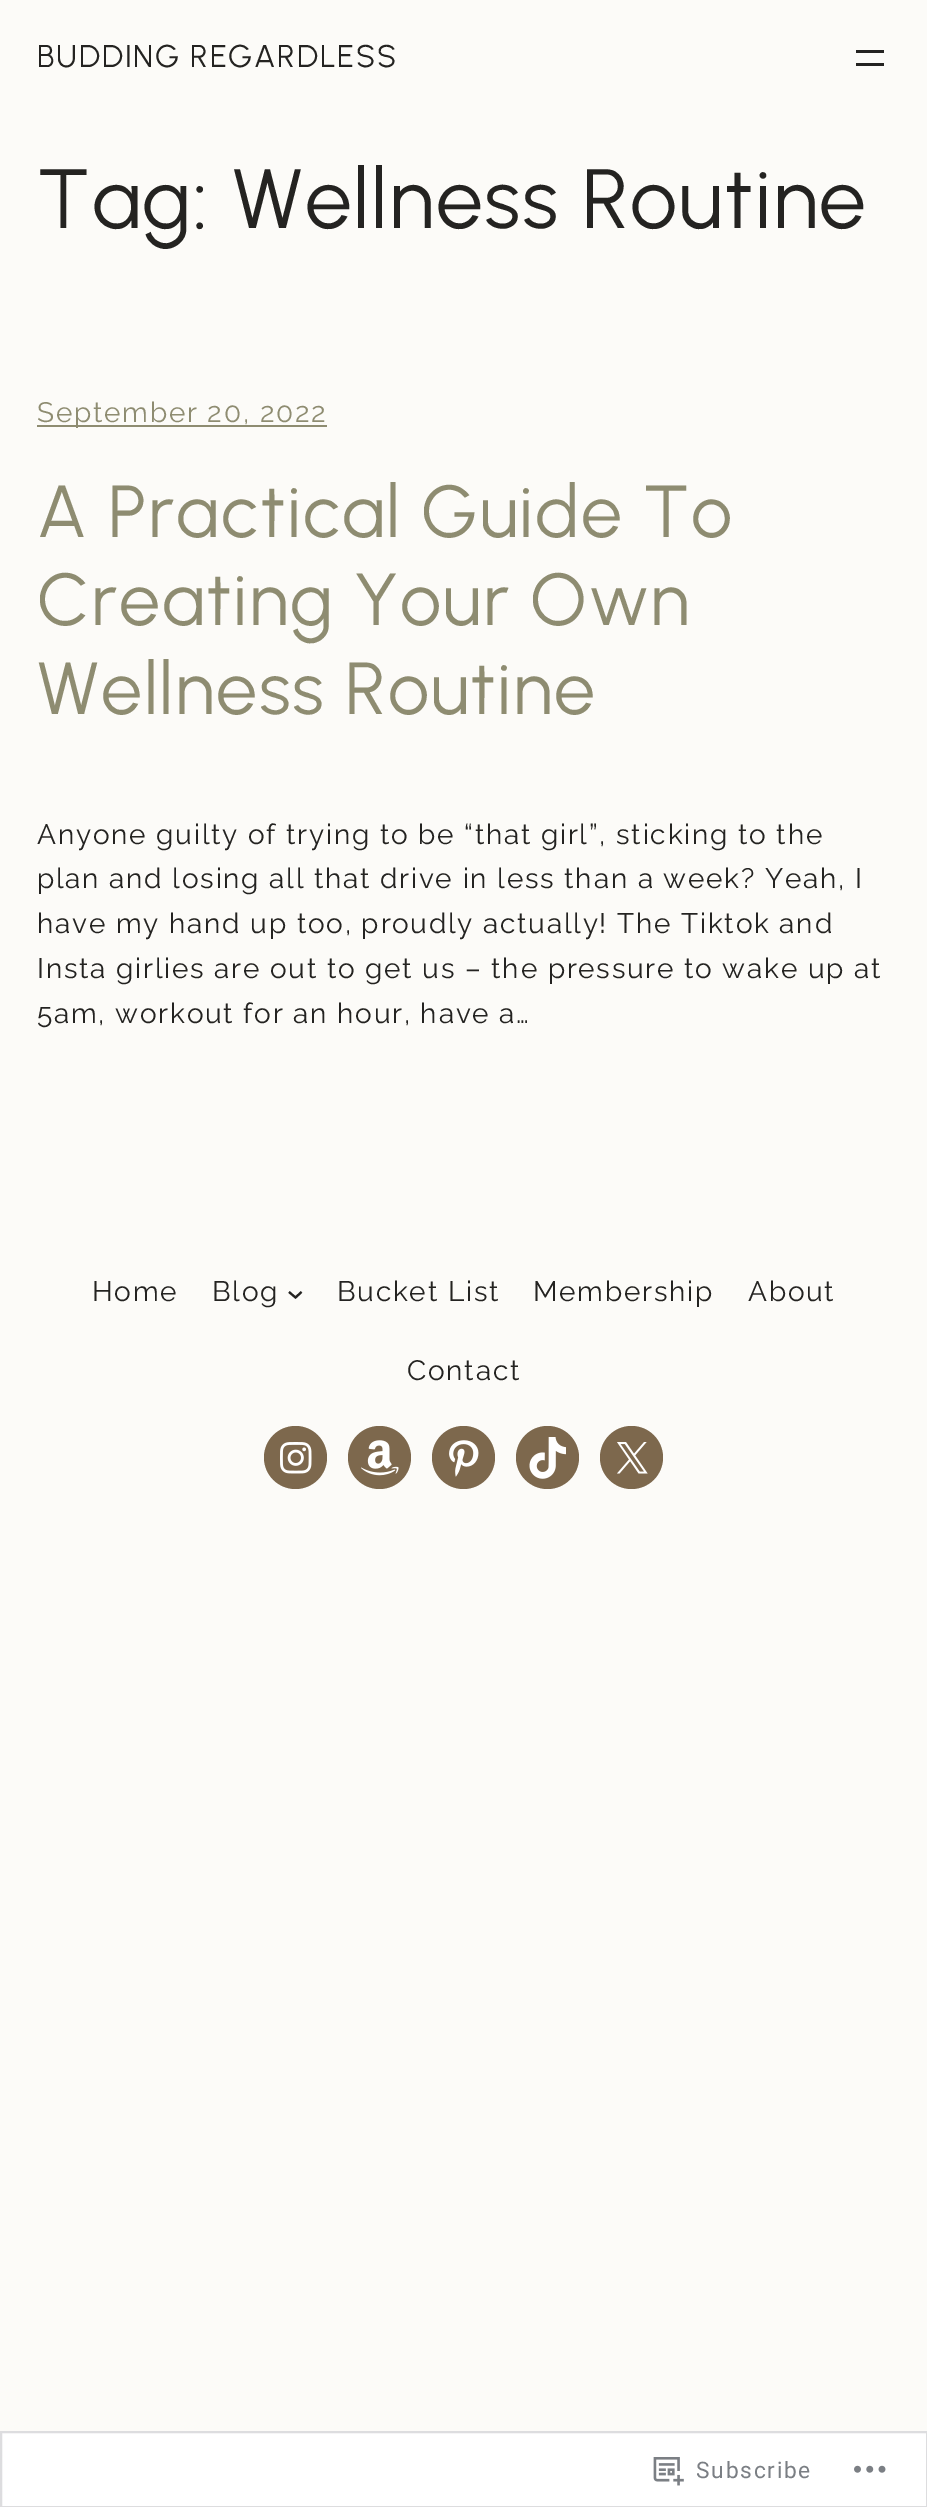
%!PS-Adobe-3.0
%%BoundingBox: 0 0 927 2507
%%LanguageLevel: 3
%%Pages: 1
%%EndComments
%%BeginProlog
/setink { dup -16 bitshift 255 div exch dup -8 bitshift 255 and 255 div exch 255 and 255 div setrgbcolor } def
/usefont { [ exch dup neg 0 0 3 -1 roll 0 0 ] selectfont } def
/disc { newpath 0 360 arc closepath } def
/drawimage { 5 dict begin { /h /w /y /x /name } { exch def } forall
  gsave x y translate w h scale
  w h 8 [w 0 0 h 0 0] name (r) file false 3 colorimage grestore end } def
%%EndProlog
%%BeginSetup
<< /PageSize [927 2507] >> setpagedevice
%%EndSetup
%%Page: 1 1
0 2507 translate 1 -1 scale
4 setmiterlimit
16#FCFBF8 setink
0 0 927 2507 rectfill
/Urbanist-Regular 31.5 usefont
16#242321 setink
37 67 moveto 1.75 0 (BUDDING REGARDLESS) ashow
856 50 28 3 rectfill
856 63 28 3 rectfill
/Urbanist-Regular 84 usefont
37 228 moveto 1.75 0 (Tag: Wellness Routine) ashow
16#8E8C71 setink
37 425 290 2 rectfill
/Raleway-Regular 28 usefont
37 422 moveto 1.75 0 (September 20, 2022) ashow
/Urbanist-Regular 73.5 usefont
37 537 moveto 1.75 0 (A Practical Guide To) ashow
37 625 moveto 1.75 0 (Creating Your Own) ashow
37 714 moveto 1.75 0 (Wellness Routine) ashow
/Raleway-Regular 28 usefont
16#242321 setink
37 844 moveto 1.75 0 (Anyone guilty of trying to be “that girl”, sticking to the) ashow
37 888 moveto 1.75 0 (plan and losing all that drive in less than a week? Yeah, I) ashow
37 933 moveto 1.75 0 (have my hand up too, proudly actually! The Tiktok and) ashow
37 978 moveto 1.75 0 (Insta girlies are out to get us – the pressure to wake up at) ashow
37 1023 moveto 1.75 0 (5am, workout for an hour, have a…) ashow
92 1301 moveto 1.75 0 (Home) ashow
212 1301 moveto 1.75 0 (Blog) ashow
2.1 setlinewidth
289 1292 moveto 295.5 1297.5 lineto 301.5 1292 lineto stroke
337 1301 moveto 1.75 0 (Bucket List) ashow
533 1301 moveto 1.75 0 (Membership) ashow
748 1301 moveto 1.75 0 (About) ashow
407 1380 moveto 1.75 0 (Contact) ashow
16#7D684D setink
295.5 1457.5 31.5 disc fill
(img1.raw) 280 1442 32 32 drawimage
379.5 1457.5 31.5 disc fill
(img2.raw) 361 1440 38 36 drawimage
463.5 1457.5 31.5 disc fill
(img3.raw) 449 1440 30 37 drawimage
547.5 1457.5 31.5 disc fill
(img4.raw) 529 1437 37 42 drawimage
631.5 1457.5 31.5 disc fill
(img5.raw) 617 1442 31 32 drawimage
16#FFFFFF setink
1 2432 moveto 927 2432 lineto 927 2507 lineto 1 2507 lineto closepath gsave fill grestore
16#DDDDDF setink
2 setlinewidth
stroke
(img6.raw) 653 2457 31 29 drawimage
/Roboto-Regular 22.75 usefont
16#7B7F84 setink
696 2478 moveto 1.75 0 (Subscribe) ashow
(img7.raw) 854 2465 32 8 drawimage
showpage
%%EOF
